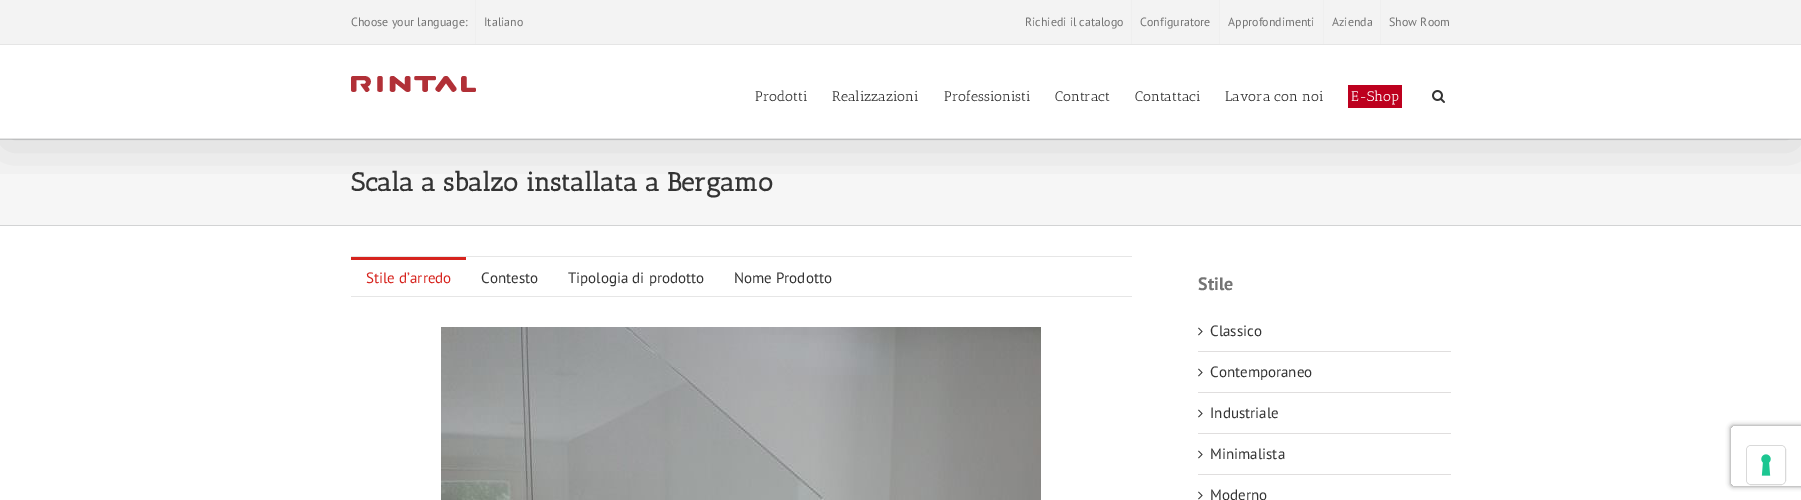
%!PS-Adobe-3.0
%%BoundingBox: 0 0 1801 500
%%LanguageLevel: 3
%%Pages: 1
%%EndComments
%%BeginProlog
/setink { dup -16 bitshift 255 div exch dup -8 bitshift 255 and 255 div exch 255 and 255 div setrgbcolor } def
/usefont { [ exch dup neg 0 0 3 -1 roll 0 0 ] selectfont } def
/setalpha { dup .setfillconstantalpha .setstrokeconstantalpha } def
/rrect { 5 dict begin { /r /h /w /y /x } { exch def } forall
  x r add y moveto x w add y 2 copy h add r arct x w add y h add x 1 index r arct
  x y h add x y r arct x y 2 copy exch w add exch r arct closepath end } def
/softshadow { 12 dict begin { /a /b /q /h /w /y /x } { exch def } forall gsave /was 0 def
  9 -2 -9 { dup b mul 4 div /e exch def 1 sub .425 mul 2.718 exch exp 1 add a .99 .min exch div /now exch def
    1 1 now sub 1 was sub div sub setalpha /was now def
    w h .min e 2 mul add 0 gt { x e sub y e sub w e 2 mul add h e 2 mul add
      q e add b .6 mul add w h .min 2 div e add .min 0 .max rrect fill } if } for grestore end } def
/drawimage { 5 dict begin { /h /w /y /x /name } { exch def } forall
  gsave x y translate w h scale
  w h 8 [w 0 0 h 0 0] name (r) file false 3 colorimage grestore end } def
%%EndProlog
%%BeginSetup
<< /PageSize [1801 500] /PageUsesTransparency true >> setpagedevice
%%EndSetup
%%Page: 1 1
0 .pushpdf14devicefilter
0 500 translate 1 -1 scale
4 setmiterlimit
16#FFFFFF setink
0 0 1801 500 rectfill
[
    [0 0 1801 44 16#F3F3F3]
    [0 44 1801 1 16#E5E5E5]
    [475 0 1 44 16#EFEFEF]
    [1131 0 1 44 16#EFEFEF]
    [1219 0 1 44 16#EFEFEF]
    [1323 0 1 44 16#EFEFEF]
    [1380 0 1 44 16#EFEFEF]
    [0 138 1801 1 16#E5E5E5]
] { aload pop setink rectfill } forall
(img1.raw) 351 76 125 16 drawimage
16#F6F6F6 setink
0 140 1801 85 rectfill
16#D2D3D4 setink
0 139 1801 1 rectfill
gsave
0 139 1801 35 rectclip
16#000000 setink
2 12 1797 135 0 25 0.14 softshadow
grestore
/PTSans-Regular 12 usefont
16#747474 setink
[
    [(Choose your language:) 351 26]
    [(Italiano) 484 26]
    [(Richiedi il catalogo) 1025 26]
    [(Configuratore) 1140 26]
    [(Approfondimenti) 1228 26]
    [(Azienda) 1332 26]
    [(Show Room) 1389 26]
] { aload pop moveto show } forall
/AnticSlab-Regular 14 usefont
16#333333 setink
[
    [(Prodotti) 755 101]
    [(Realizzazioni) 832 101]
    [(Professionisti) 944 101]
    [(Contract) 1055 101]
    [(Contattaci) 1135 101]
    [(Lavora con noi) 1225 101]
] { aload pop moveto show } forall
16#BD001E setink
1348 85 54 23 rectfill
16#FFFFFF setink
1351 101 moveto (E-Shop) show
(img2.raw) 1432 90 13 13 drawimage
16#D2D3D4 setink
0 225 1801 1 rectfill
/AnticSlab-Bold 26 usefont
16#333333 setink
351 191 moveto (Scala a sbalzo installata a Bergamo) show
[
    [351 256 781 1 16#E6E6E6]
    [351 296 781 1 16#E6E6E6]
    [351 257 115 3 16#D6231D]
] { aload pop setink rectfill } forall
/PTSans-Regular 15 usefont
366 283 moveto (Stile d’arredo) show
16#333333 setink
[
    [(Contesto) 481 283]
    [(Tipologia di prodotto) 568 283]
    [(Nome Prodotto) 734 283]
] { aload pop moveto show } forall
(img3.raw) 441 327 600 173 drawimage
/PTSans-Bold 18 usefont
16#747474 setink
1198 290 moveto (Stile) show
16#E0DEDE setink
1198 351 253 1 rectfill
(img4.raw) 1198 327 5 9 drawimage
/PTSans-Regular 15 usefont
16#333333 setink
1210 336 moveto (Classico) show
16#E0DEDE setink
1198 392 253 1 rectfill
(img4.raw) 1198 368 5 9 drawimage
16#333333 setink
1210 377 moveto (Contemporaneo) show
16#E0DEDE setink
1198 433 253 1 rectfill
(img4.raw) 1198 409 5 9 drawimage
16#333333 setink
1210 418 moveto (Industriale) show
16#E0DEDE setink
1198 474 253 1 rectfill
(img4.raw) 1198 450 5 9 drawimage
16#333333 setink
1210 459 moveto (Minimalista) show
(img4.raw) 1198 491 5 9 drawimage
1210 500 moveto (Moderno) show
gsave
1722 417 moveto 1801 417 lineto 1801 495 lineto 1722 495 lineto closepath 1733 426 moveto 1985 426 lineto 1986 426 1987 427 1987 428 curveto 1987 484 lineto 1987 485 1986 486 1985 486 curveto 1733 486 lineto 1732 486 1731 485 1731 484 curveto 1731 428 lineto 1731 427 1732 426 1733 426 curveto closepath eoclip newpath
16#808080 setink
1731 426 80 60 2 2.5 1 softshadow
grestore
16#D9D9D9 setink
1746.5 445.5 39 39 4.5 rrect stroke
16#FFFFFF setink
1747 446 38 38 4 rrect fill
(img5.raw) 1761 454 10 22 drawimage
.poppdf14devicefilter showpage
%%EOF
